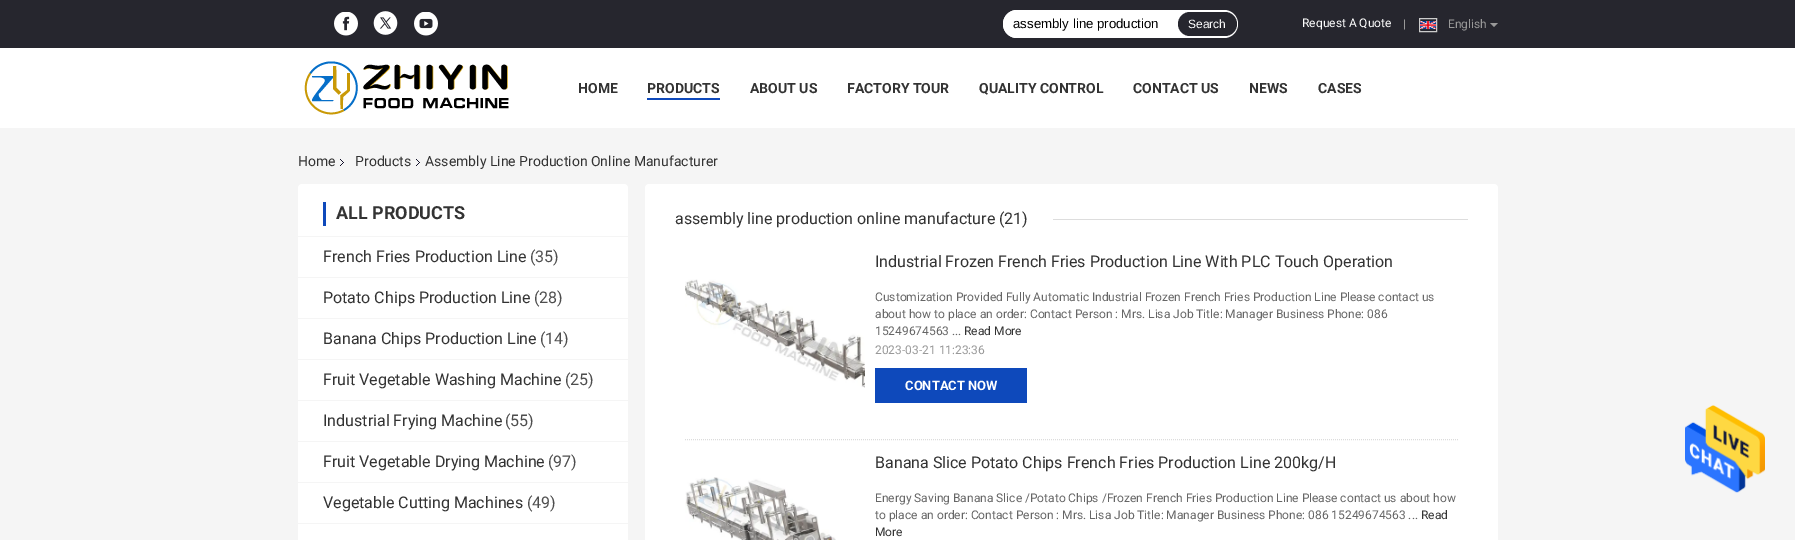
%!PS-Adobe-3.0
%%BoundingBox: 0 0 1795 540
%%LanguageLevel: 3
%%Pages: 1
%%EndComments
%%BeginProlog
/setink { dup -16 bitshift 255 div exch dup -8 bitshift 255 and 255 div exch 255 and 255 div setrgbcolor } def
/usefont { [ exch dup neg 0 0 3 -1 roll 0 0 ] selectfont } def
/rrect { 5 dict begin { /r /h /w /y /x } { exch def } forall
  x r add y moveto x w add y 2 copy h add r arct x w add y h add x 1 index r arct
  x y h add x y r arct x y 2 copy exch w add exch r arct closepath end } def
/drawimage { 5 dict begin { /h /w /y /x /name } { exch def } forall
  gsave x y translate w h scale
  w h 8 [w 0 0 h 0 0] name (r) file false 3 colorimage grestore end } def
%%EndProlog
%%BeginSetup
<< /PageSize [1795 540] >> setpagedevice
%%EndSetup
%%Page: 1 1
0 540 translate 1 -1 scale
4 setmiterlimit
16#F5F5F5 setink
0 0 1795 540 rectfill
16#FFFFFF setink
0 48 1795 80 rectfill
16#26262E setink
0 0 1795 48 rectfill
(img1.raw) 334 12 24 24 drawimage
(img2.raw) 373 11 25 24 drawimage
(img3.raw) 414 12 24 24 drawimage
16#FFFFFF setink
1003 10 235 28 14 rrect fill
1017 10 moveto 1178 10 lineto 1178 38 lineto 1017 38 lineto 1009.5 38 1003 31.5 1003 24 curveto 1003 16.5 1009.5 10 1017 10 curveto closepath fill
/LiberationSans-Regular 13.25 usefont
16#000000 setink
1013 28 moveto (assembly line production) show
16#26262E setink
1178 12 59 24 12 rrect fill
/LiberationSans-Regular 12 usefont
16#FFFFFF setink
1188 28 moveto (Search) show
/Roboto-Regular 12 usefont
1302 27 moveto (Request A Quote) show
16#999999 setink
1403 28 moveto (|) show
16#CCCCCC setink
1419.5 18.5 17 13 rectstroke
16#999999 setink
1448 28 moveto (English) show
(img4.raw) 1420 21 16 9 drawimage
1490 23 moveto 1498 23 lineto 1494 27 lineto closepath fill
(img5.raw) 304 61 205 54 drawimage
/Roboto-Bold 14 usefont
16#333333 setink
578 93 moveto (HOME) show
647 93 moveto (PRODUCTS) show
16#0E49BB setink
647 98 73 2 rectfill
16#333333 setink
[
    [(ABOUT US) 750 93]
    [(FACTORY TOUR) 847 93]
    [(QUALITY CONTROL) 979 93]
    [(CONTACT US) 1133 93]
    [(NEWS) 1249 93]
    [(CASES) 1318 93]
] { aload pop moveto show } forall
/Roboto-Regular 14 usefont
298 166 moveto (Home) show
(img6.raw) 340 159 4 7 drawimage
355 166 moveto (Products) show
(img6.raw) 416 159 4 7 drawimage
425 166 moveto (Assembly Line Production Online Manufacturer) show
16#FFFFFF setink
298 184 330 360 4 rrect fill
16#F5F5F5 setink
298 236 330 1 rectfill
16#0E49BB setink
323 202 3 24 rectfill
/Roboto-Bold 18 usefont
16#333333 setink
336 219 moveto (ALL PRODUCTS) show
16#F5F5F5 setink
298 277 330 1 rectfill
/Roboto-Regular 16 usefont
16#333333 setink
323 262 moveto (French Fries Production Line) show
16#4E4E4E setink
530 262 moveto (\(35\)) show
16#F5F5F5 setink
298 318 330 1 rectfill
16#333333 setink
323 303 moveto (Potato Chips Production Line) show
16#4E4E4E setink
534 303 moveto (\(28\)) show
16#F5F5F5 setink
298 359 330 1 rectfill
16#333333 setink
323 344 moveto (Banana Chips Production Line) show
16#4E4E4E setink
540 344 moveto (\(14\)) show
16#F5F5F5 setink
298 400 330 1 rectfill
16#333333 setink
323 385 moveto (Fruit Vegetable Washing Machine) show
16#4E4E4E setink
565 385 moveto (\(25\)) show
16#F5F5F5 setink
298 441 330 1 rectfill
16#333333 setink
323 426 moveto (Industrial Frying Machine) show
16#4E4E4E setink
505 426 moveto (\(55\)) show
16#F5F5F5 setink
298 482 330 1 rectfill
16#333333 setink
323 467 moveto (Fruit Vegetable Drying Machine) show
16#4E4E4E setink
548 467 moveto (\(97\)) show
16#F5F5F5 setink
298 523 330 1 rectfill
16#333333 setink
323 508 moveto (Vegetable Cutting Machines) show
16#4E4E4E setink
527 508 moveto (\(49\)) show
16#FFFFFF setink
645 184 853 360 4 rrect fill
16#333333 setink
675 224 moveto (assembly line production online manufacture \(21\)) show
16#DDDDDD setink
1053 219 415 1 rectfill
16#DCDCDC setink
[1 1] 0 setdash
685 439.5 moveto 1458 439.5 lineto stroke
(img7.raw) 685 279 180 109 drawimage
16#333333 setink
875 267 moveto (Industrial Frozen French Fries Production Line With PLC Touch Operation) show
16#0E49BB setink
875 368 152 35 rectfill
/Roboto-Bold 13 usefont
16#FFFFFF setink
905 390 moveto (CONTACT NOW) show
/Roboto-Regular 12 usefont
16#666666 setink
[
    [(Customization Provided Fully Automatic Industrial Frozen French Fries Production Line Please contact us) 875 301]
    [(about how to place an order: Contact Person : Mrs. Lisa Job Title: Manager Business Phone: 086) 875 318]
    [(15249674563 ...) 875 335]
] { aload pop moveto show } forall
16#333333 setink
964 335 moveto (Read More) show
16#999999 setink
875 354 moveto (2023-03-21 11:23:36) show
(img8.raw) 685 477 151 63 drawimage
/Roboto-Regular 16 usefont
16#333333 setink
875 468 moveto (Banana Slice Potato Chips French Fries Production Line 200kg/H) show
/Roboto-Regular 12 usefont
16#666666 setink
875 502 moveto (Energy Saving Banana Slice /Potato Chips /Frozen French Fries Production Line Please contact us about how) show
875 519 moveto (to place an order: Contact Person : Mrs. Lisa Job Title: Manager Business Phone: 086 15249674563 ...) show
16#333333 setink
1421 519 moveto (Read) show
875 536 moveto (More) show
(img9.raw) 1685 405 80 88 drawimage
showpage
%%EOF
